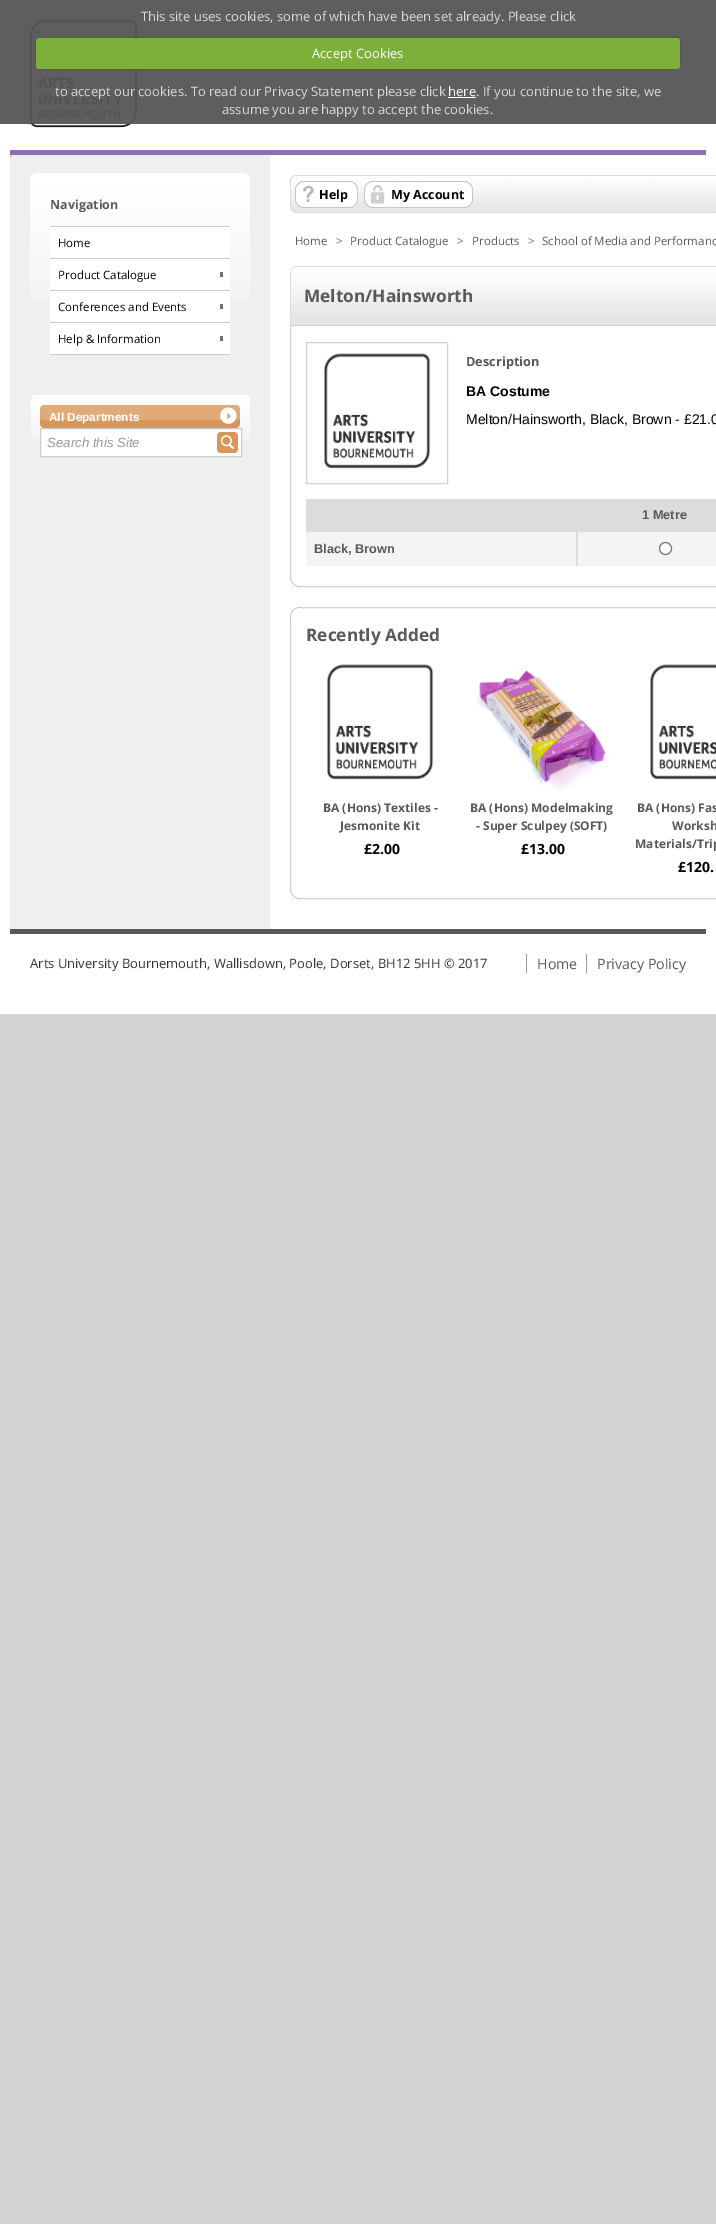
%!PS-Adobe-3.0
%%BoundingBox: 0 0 716 2224
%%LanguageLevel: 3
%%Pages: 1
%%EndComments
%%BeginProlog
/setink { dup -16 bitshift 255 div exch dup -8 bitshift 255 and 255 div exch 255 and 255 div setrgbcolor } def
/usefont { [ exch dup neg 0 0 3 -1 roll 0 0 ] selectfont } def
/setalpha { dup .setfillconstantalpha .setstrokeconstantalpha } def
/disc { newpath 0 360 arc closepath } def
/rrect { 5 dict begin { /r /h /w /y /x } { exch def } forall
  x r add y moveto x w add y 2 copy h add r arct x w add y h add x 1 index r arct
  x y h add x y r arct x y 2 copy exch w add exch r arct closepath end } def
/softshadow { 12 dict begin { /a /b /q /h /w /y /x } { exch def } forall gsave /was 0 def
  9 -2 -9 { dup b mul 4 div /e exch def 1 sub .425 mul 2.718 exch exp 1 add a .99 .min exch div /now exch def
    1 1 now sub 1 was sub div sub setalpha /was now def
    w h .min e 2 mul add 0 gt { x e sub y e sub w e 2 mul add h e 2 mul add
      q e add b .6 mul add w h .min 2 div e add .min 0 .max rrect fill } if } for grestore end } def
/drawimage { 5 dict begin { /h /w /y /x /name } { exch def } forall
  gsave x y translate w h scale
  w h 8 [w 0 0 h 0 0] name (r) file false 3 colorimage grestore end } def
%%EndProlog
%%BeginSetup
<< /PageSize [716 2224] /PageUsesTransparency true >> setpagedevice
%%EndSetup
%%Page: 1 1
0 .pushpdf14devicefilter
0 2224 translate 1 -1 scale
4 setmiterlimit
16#D1D3D4 setink
0 0 716 2224 rectfill
16#5E5E5E setink
0 0 716 124 rectfill
/OpenSans-Regular 13 usefont
16#DADADA setink
141 21 moveto (This site uses cookies, some of which have been set already. Please click) show
16#FFFFFF setink
0 124 716 890 rectfill
(img1.raw) 30 20 107 108 drawimage
16#000000 setink
36 38 644 31 3 1 0.25 softshadow
16#7DAF3B setink
36 38 644 31 3 rrect fill
16#FFFFFF setink
312 58 moveto (Accept Cookies) show
16#DADADA setink
55 96 moveto (to accept our cookies. To read our Privacy Statement please click) show
16#FFFFFF setink
448 96 moveto (here) show
448 97 28 1 rectfill
16#DADADA setink
476 96 moveto (. If you continue to the site, we) show
222 114 moveto (assume you are happy to accept the cookies.) show
[
    [10 150 696 5 16#906EB5]
    [10 155 260 774 16#EFEFEF]
    [10 155 2 2 16#CCCCCC]
] { aload pop setink rectfill } forall
(img2.raw) 30 173 220 127 drawimage
/OpenSans-Bold 12.5 usefont
16#58595B setink
50 209 moveto (Navigation) show
[
    [50 226 180 1 16#CCCCCC]
    [50 227 180 31 16#FFFFFF]
    [50 258 180 1 16#CCCCCC]
] { aload pop setink rectfill } forall
/OpenSans-Regular 11.5 usefont
16#000000 setink
58 247 moveto (Home) show
[
    [50 259 180 31 16#FFFFFF]
    [50 290 180 1 16#CCCCCC]
    [220 272 3 5 16#717171]
] { aload pop setink rectfill } forall
16#000000 setink
58 279 moveto (Product Catalogue) show
[
    [50 291 180 31 16#FFFFFF]
    [50 322 180 1 16#CCCCCC]
    [220 304 3 5 16#717171]
] { aload pop setink rectfill } forall
16#000000 setink
58 311 moveto (Conferences and Events) show
[
    [50 323 180 31 16#FFFFFF]
    [50 354 180 1 16#CCCCCC]
    [220 336 3 5 16#717171]
] { aload pop setink rectfill } forall
16#000000 setink
58 343 moveto (Help & Information) show
(img3.raw) 31 395 219 44 drawimage
16#D89758 setink
40 405 200 23 rectfill
(img4.raw) 40 405 200 23 drawimage
(img5.raw) 49 405 191 23 drawimage
/LiberationSans-Bold 11.75 usefont
16#FFFFFF setink
49 421 moveto (All Departments) show
40.5 428.5 moveto 241.5 428.5 lineto 241.5 456.5 lineto 40.5 456.5 lineto closepath gsave fill grestore
16#CCCCCC setink
stroke
/LiberationSans-Italic 13.25 usefont
16#999999 setink
47 447 moveto (Search this Site) show
16#D89758 setink
217 432 21 21 rectfill
(img6.raw) 217 432 21 21 drawimage
(img7.raw) 290 175 426 38 drawimage
(img8.raw) 295 181 63 27 drawimage
/OpenSans-Bold 12.5 usefont
16#000000 setink
319 199 moveto (Help) show
(img9.raw) 364 181 109 27 drawimage
391 199 moveto (My Account) show
/OpenSans-Regular 11.5 usefont
16#58595B setink
295 245 moveto (Home) show
16#666666 setink
336 245 moveto (>) show
16#58595B setink
350 245 moveto (Product Catalogue) show
16#666666 setink
457 245 moveto (>) show
16#58595B setink
472 245 moveto (Products) show
16#666666 setink
528 245 moveto (>) show
16#58595B setink
542 245 moveto (School of Media and Performanc) show
16#D1D1D1 setink
290.5 266.5 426 320 rectstroke
16#E5E5E5 setink
290 323 2 2 rectfill
(img10.raw) 290 266 2 57 drawimage
16#CCCCCC setink
290 325 426 1 rectfill
16#E5E5E5 setink
292 314 424 11 rectfill
(img11.raw) 292 266 424 48 drawimage
/OpenSans-Bold 17.25 usefont
16#58595B setink
304 302 moveto (Melton/Hainsworth) show
16#D1D1D1 setink
306.5 342.5 141 141 rectstroke
(img12.raw) 324 353 107 116 drawimage
/OpenSans-Bold 12.75 usefont
16#58595B setink
466 366 moveto (Description) show
/LiberationSans-Bold 14 usefont
16#000000 setink
466 396 moveto (BA Costume) show
/LiberationSans-Regular 14 usefont
466 424 moveto (Melton/Hainsworth, Black, Brown - £21.0) show
16#DEDBDB setink
306 499 410 33 rectfill
/LiberationSans-Bold 12.75 usefont
16#58595B setink
642 519 moveto (1 Metre) show
16#F4F4F4 setink
306 532 410 34 rectfill
16#58595B setink
314 553 moveto (Black, Brown) show
16#DEDBDB setink
576 532 2 34 rectfill
16#FFFFFF setink
665.5 548.5 6 disc gsave fill grestore
16#767676 setink
stroke
(img13.raw) 290 575 12 12 drawimage
16#D1D1D1 setink
290.5 607.5 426 291 rectstroke
(img14.raw) 290 607 12 12 drawimage
/OpenSans-Bold 17.25 usefont
16#58595B setink
306 641 moveto (Recently Added) show
(img12.raw) 327 664 107 116 drawimage
/OpenSans-Bold 12 usefont
323 812 moveto (BA \(Hons\) Textiles -) show
340 830 moveto (Jesmonite Kit) show
/OpenSans-Bold 14 usefont
16#000000 setink
364 854 moveto (£2.00) show
(img15.raw) 476 670 135 120 drawimage
/OpenSans-Bold 12 usefont
16#58595B setink
470 812 moveto (BA \(Hons\) Modelmaking) show
476 830 moveto (- Super Sculpey \(SOFT\)) show
/OpenSans-Bold 14 usefont
16#000000 setink
521 854 moveto (£13.00) show
(img16.raw) 650 664 66 116 drawimage
/OpenSans-Bold 12 usefont
16#58595B setink
[
    [(BA \(Hons\) Fas) 637 812]
    [(Worksh) 672 830]
    [(Materials/Trip) 635 848]
] { aload pop moveto show } forall
/OpenSans-Bold 14 usefont
16#000000 setink
678 872 moveto (£120.) show
(img13.raw) 290 887 12 12 drawimage
16#58595B setink
10 929 696 5 rectfill
/OpenSans-Regular 13 usefont
16#333333 setink
30 968 moveto (Arts University Bournemouth, Wallisdown, Poole, Dorset, BH12 5HH © 2017) show
/OpenSans-Regular 14.25 usefont
16#58595B setink
537 969 moveto (Home) show
16#999999 setink
526 954 1 19 rectfill
16#58595B setink
597 969 moveto (Privacy Policy) show
16#999999 setink
586 954 1 19 rectfill
.poppdf14devicefilter showpage
%%EOF
